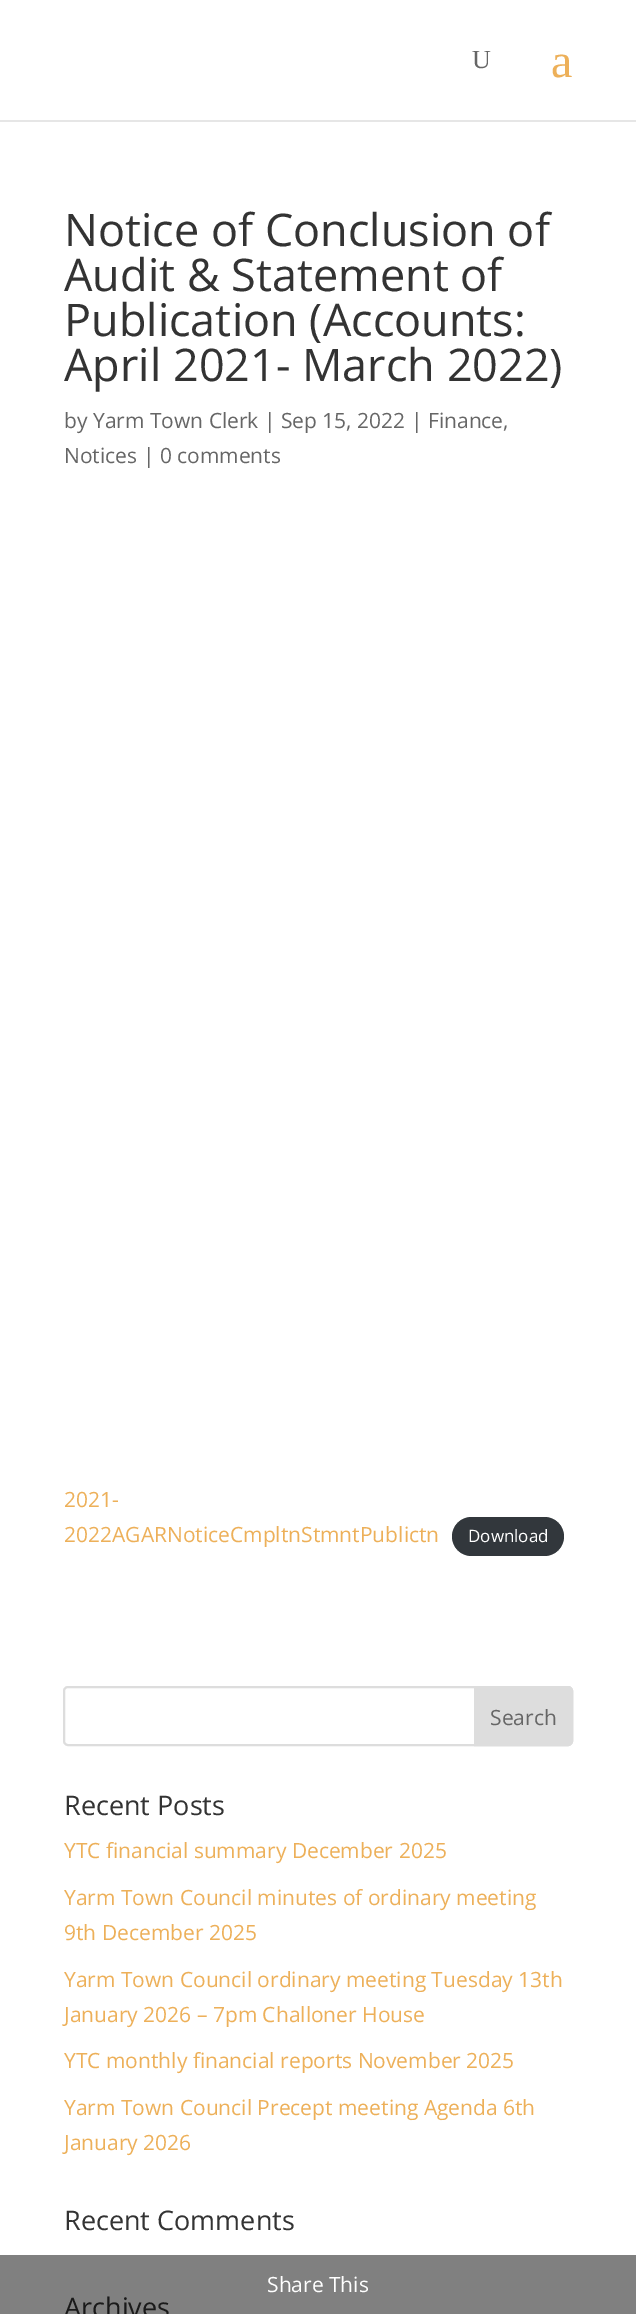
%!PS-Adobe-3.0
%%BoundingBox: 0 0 636 2314
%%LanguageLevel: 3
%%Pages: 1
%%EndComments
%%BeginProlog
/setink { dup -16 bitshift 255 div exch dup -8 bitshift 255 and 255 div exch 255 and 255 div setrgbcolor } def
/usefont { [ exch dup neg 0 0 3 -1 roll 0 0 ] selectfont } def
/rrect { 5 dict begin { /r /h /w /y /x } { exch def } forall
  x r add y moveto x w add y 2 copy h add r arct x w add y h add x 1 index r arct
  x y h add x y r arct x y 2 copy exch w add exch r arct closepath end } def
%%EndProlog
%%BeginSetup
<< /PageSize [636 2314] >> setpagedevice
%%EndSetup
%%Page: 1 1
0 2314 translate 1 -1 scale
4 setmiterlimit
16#FFFFFF setink
0 0 636 2314 rectfill
16#808080 setink
0 2255 636 59 rectfill
16#E6E6E6 setink
0 120 636 2 rectfill
/LiberationSerif-Regular 26 usefont
16#666666 setink
472 68 moveto (U) show
/LiberationSerif-Regular 48 usefont
16#EDB059 setink
551 77 moveto (a) show
/OpenSans-Regular 45 usefont
16#333333 setink
[
    [(Notice of Conclusion of) 64 246]
    [(Audit & Statement of) 64 291]
    [(Publication \(Accounts:) 64 336]
    [(April 2021- March 2022\)) 64 381]
] { aload pop moveto show } forall
/OpenSans-Regular 21 usefont
16#666666 setink
64 428 moveto (by Yarm Town Clerk | Sep 15, 2022 | Finance,) show
64 463 moveto (Notices | 0 comments) show
16#EDB059 setink
64 1507 moveto (2021-) show
64 1542 moveto (2022AGARNoticeCmpltnStmntPublictn) show
16#32373C setink
452 1517 112 39 19.5 rrect fill
/OpenSans-Regular 17 usefont
16#FFFFFF setink
468 1542 moveto (Download) show
16#DDDDDD setink
2 setlinewidth
64 1687 508 58 4 rrect stroke
475 1687 moveto 568 1687 lineto 570 1687 572 1689 572 1691 curveto 572 1741 lineto 572 1743 570 1745 568 1745 curveto 475 1745 lineto closepath gsave fill grestore
stroke
/OpenSans-Regular 21 usefont
16#666666 setink
490 1725 moveto (Search) show
/OpenSans-Regular 27 usefont
16#333333 setink
64 1815 moveto (Recent Posts) show
/OpenSans-Regular 21 usefont
16#EDB059 setink
[
    [(YTC financial summary December 2025) 64 1858]
    [(Yarm Town Council minutes of ordinary meeting) 64 1905]
    [(9th December 2025) 64 1940]
    [(Yarm Town Council ordinary meeting Tuesday 13th) 64 1987]
    [(January 2026 – 7pm Challoner House) 64 2022]
    [(YTC monthly financial reports November 2025) 64 2068]
    [(Yarm Town Council Precept meeting Agenda 6th) 64 2115]
    [(January 2026) 64 2150]
] { aload pop moveto show } forall
/OpenSans-Regular 27 usefont
16#333333 setink
64 2230 moveto (Recent Comments) show
16#1A1A1A setink
64 2317 moveto (Archives) show
/OpenSans-Regular 21 usefont
16#FFFFFF setink
267 2292 moveto (Share This) show
showpage
%%EOF
